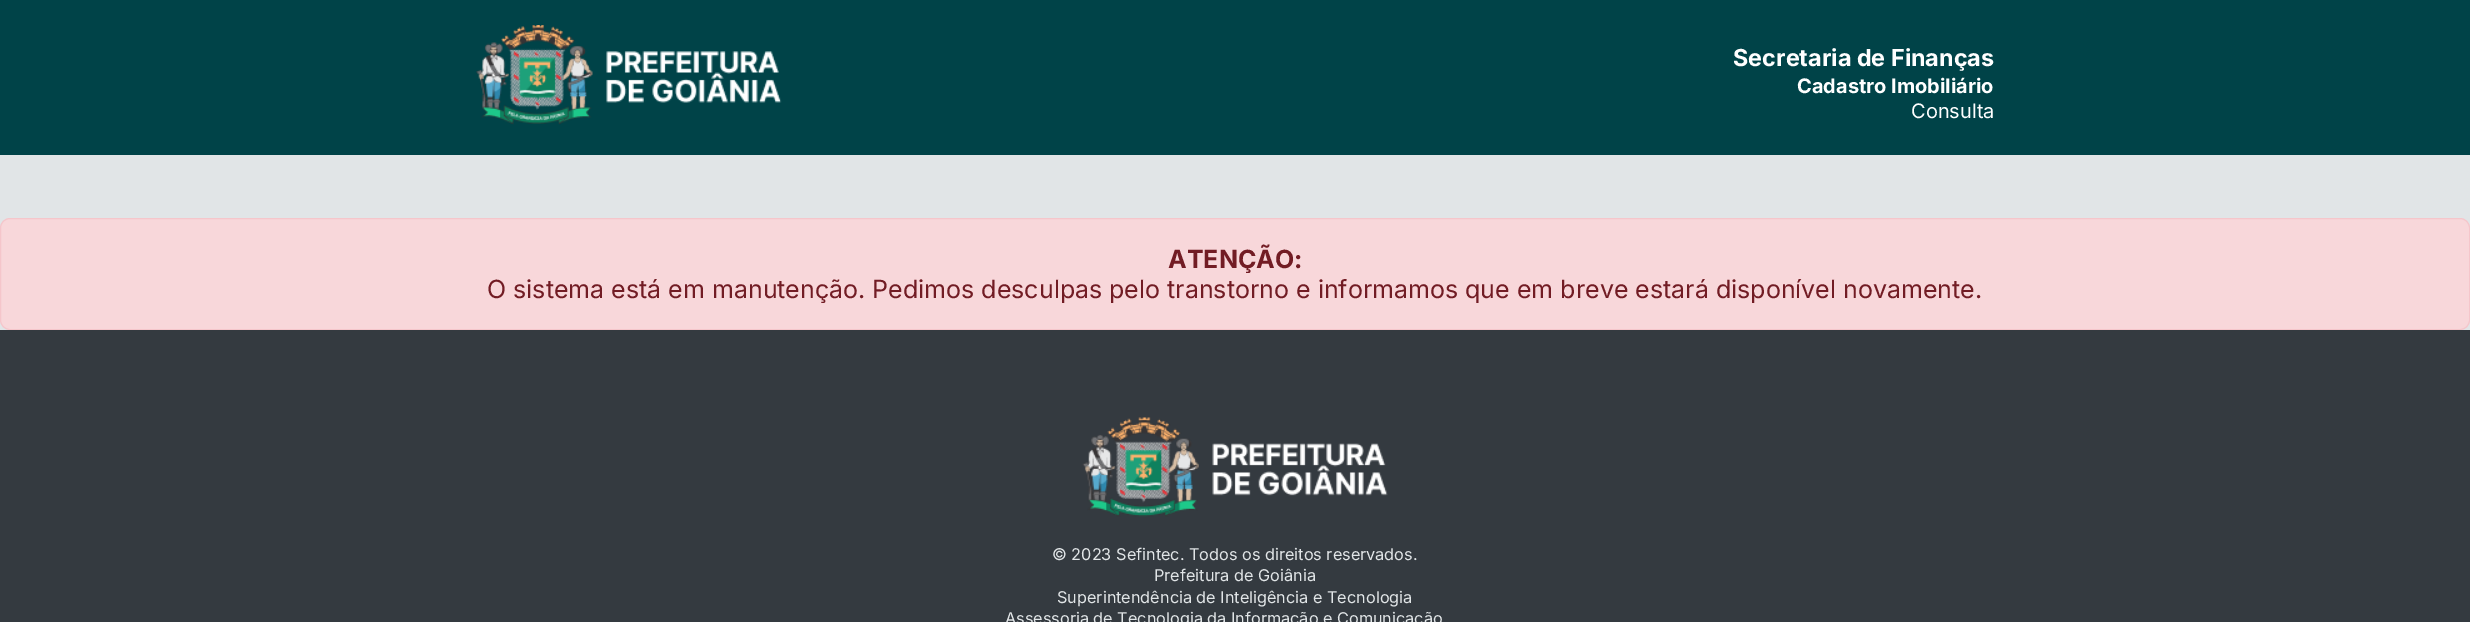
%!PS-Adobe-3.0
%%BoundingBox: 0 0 2470 622
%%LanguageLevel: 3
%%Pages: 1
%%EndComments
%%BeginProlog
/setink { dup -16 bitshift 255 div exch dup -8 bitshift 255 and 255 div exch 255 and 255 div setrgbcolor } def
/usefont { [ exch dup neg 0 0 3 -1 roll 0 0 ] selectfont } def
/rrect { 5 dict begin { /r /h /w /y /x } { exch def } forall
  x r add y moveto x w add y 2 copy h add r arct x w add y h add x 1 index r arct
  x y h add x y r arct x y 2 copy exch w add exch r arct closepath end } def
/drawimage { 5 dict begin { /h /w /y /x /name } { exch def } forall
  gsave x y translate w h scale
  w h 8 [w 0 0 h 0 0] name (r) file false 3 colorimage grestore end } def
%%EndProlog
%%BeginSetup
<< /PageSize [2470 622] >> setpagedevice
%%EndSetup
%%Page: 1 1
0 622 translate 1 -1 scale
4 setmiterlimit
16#E1E5E7 setink
0 0 2470 622 rectfill
16#004348 setink
0 0 2470 155 rectfill
(img1.raw) 476 25 306 100 drawimage
/Inter-Bold 23.4 usefont
16#FFFFFF setink
1733 66 moveto (Secretaria de Finanças) show
/Inter-Bold 20 usefont
1797 93 moveto (Cadastro Imobiliário) show
/Inter-Regular 20 usefont
1911 118 moveto (Consulta) show
16#F8D7DA setink
0.5 218.5 2469 111 9.5 rrect gsave fill grestore
16#F5C6CB setink
stroke
/Inter-Bold 25 usefont
16#721C24 setink
1168 268 moveto (ATENÇÃO:) show
/Inter-Regular 25 usefont
487 298 moveto (O sistema está em manutenção. Pedimos desculpas pelo transtorno e informamos que em breve estará disponível novamente.) show
16#343A40 setink
0 330 2470 292 rectfill
(img2.raw) 1082 417 306 100 drawimage
/Inter-Regular 16.25 usefont
16#E1E5E7 setink
[
    [(© 2023 Sefintec. Todos os direitos reservados.) 1052 560]
    [(Prefeitura de Goiânia) 1154 581]
    [(Superintendência de Inteligência e Tecnologia) 1057 603]
    [(Assessoria de Tecnologia da Informação e Comunicação) 1005 624]
] { aload pop moveto show } forall
showpage
%%EOF
